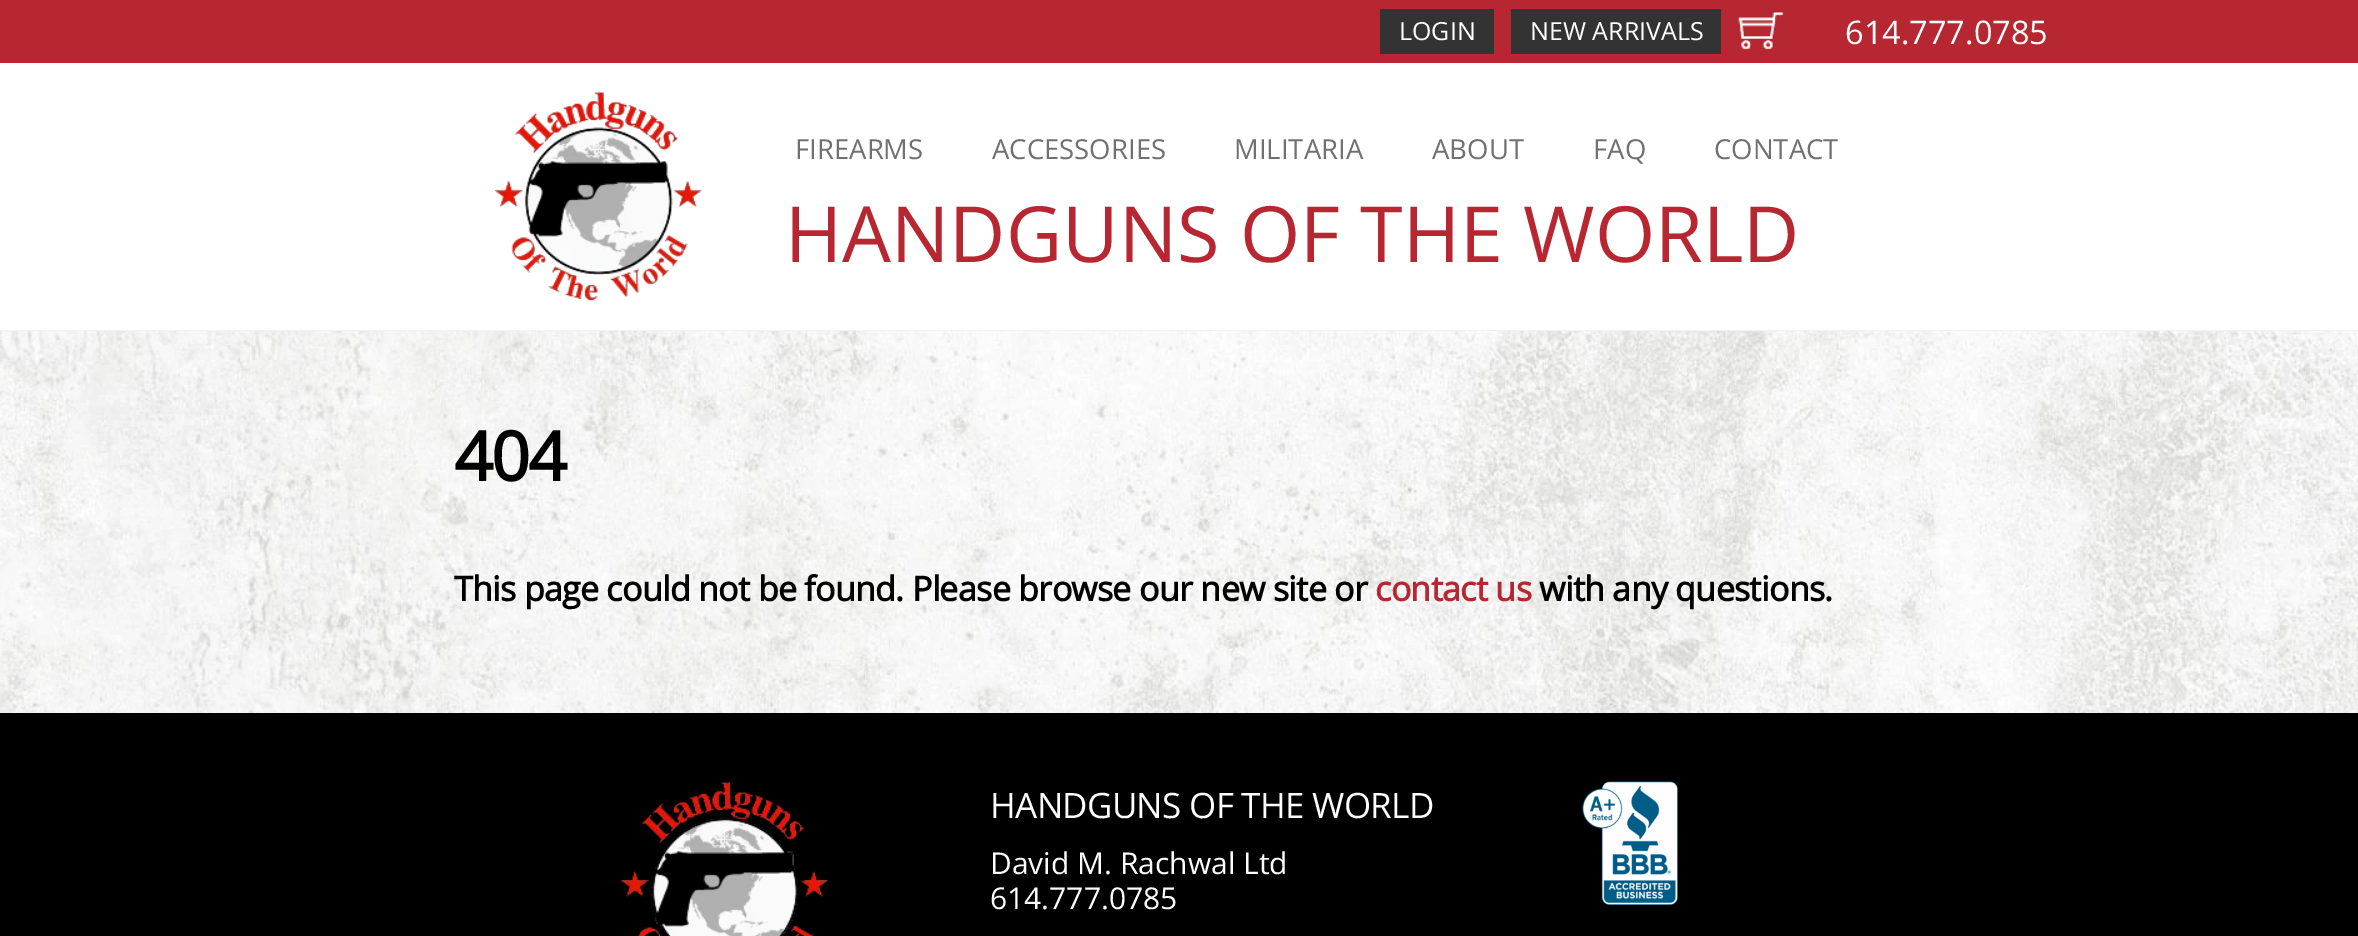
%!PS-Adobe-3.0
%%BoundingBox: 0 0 2358 936
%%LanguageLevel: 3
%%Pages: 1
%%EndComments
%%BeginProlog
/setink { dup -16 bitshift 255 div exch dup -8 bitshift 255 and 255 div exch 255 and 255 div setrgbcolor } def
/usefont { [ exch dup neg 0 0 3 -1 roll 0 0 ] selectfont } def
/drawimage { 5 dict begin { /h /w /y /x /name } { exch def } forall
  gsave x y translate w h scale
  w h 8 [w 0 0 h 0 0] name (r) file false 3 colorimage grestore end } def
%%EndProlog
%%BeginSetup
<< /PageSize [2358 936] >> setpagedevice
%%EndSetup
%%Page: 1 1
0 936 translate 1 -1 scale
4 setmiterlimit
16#FFFFFF setink
0 0 2358 936 rectfill
(img1.raw) 0 331 2358 382 drawimage
[
    [0 330 2358 1 16#F2F2F2]
    [0 0 2358 63 16#B62732]
    [1380 9 114 45 16#333333]
] { aload pop setink rectfill } forall
/OpenSans-Regular 25 usefont
16#FFFFFF setink
1399 40 moveto (LOGIN) show
16#333333 setink
1511 9 210 45 rectfill
16#FFFFFF setink
1530 40 moveto (NEW ARRIVALS) show
(img2.raw) 1738 12 46 38 drawimage
/OpenSans-Regular 32.5 usefont
1845 44 moveto (614.777.0785) show
(img3.raw) 494 92 208 209 drawimage
/OpenSans-Regular 27.5 usefont
16#707070 setink
[
    [(FIREARMS) 795 159]
    [(ACCESSORIES) 992 159]
    [(MILITARIA) 1234 159]
    [(ABOUT) 1432 159]
    [(FAQ) 1593 159]
    [(CONTACT) 1714 159]
] { aload pop moveto show } forall
/OpenSans-Regular 77.5 usefont
16#B62732 setink
785 262 moveto (HANDGUNS OF THE WORLD) show
/OpenSans-Bold 68 usefont
16#000000 setink
454 481 moveto -2 0 (404) ashow
/OpenSans-Bold 34 usefont
454 601 moveto -0.68 0 (This page could not be found. Please browse our new site or) ashow
16#B62732 setink
1375 601 moveto -0.68 0 (contact us) ashow
16#000000 setink
1539 601 moveto -0.68 0 (with any questions.) ashow
0 713 2358 223 rectfill
(img4.raw) 621 782 207 154 drawimage
/OpenSans-Regular 35 usefont
16#FFFFFF setink
990 818 moveto -0.7 0 (HANDGUNS OF THE WORLD) ashow
/OpenSans-Regular 30 usefont
990 874 moveto (David M. Rachwal Ltd) show
990 909 moveto (614.777.0785) show
(img5.raw) 1582 781 96 124 drawimage
showpage
%%EOF
